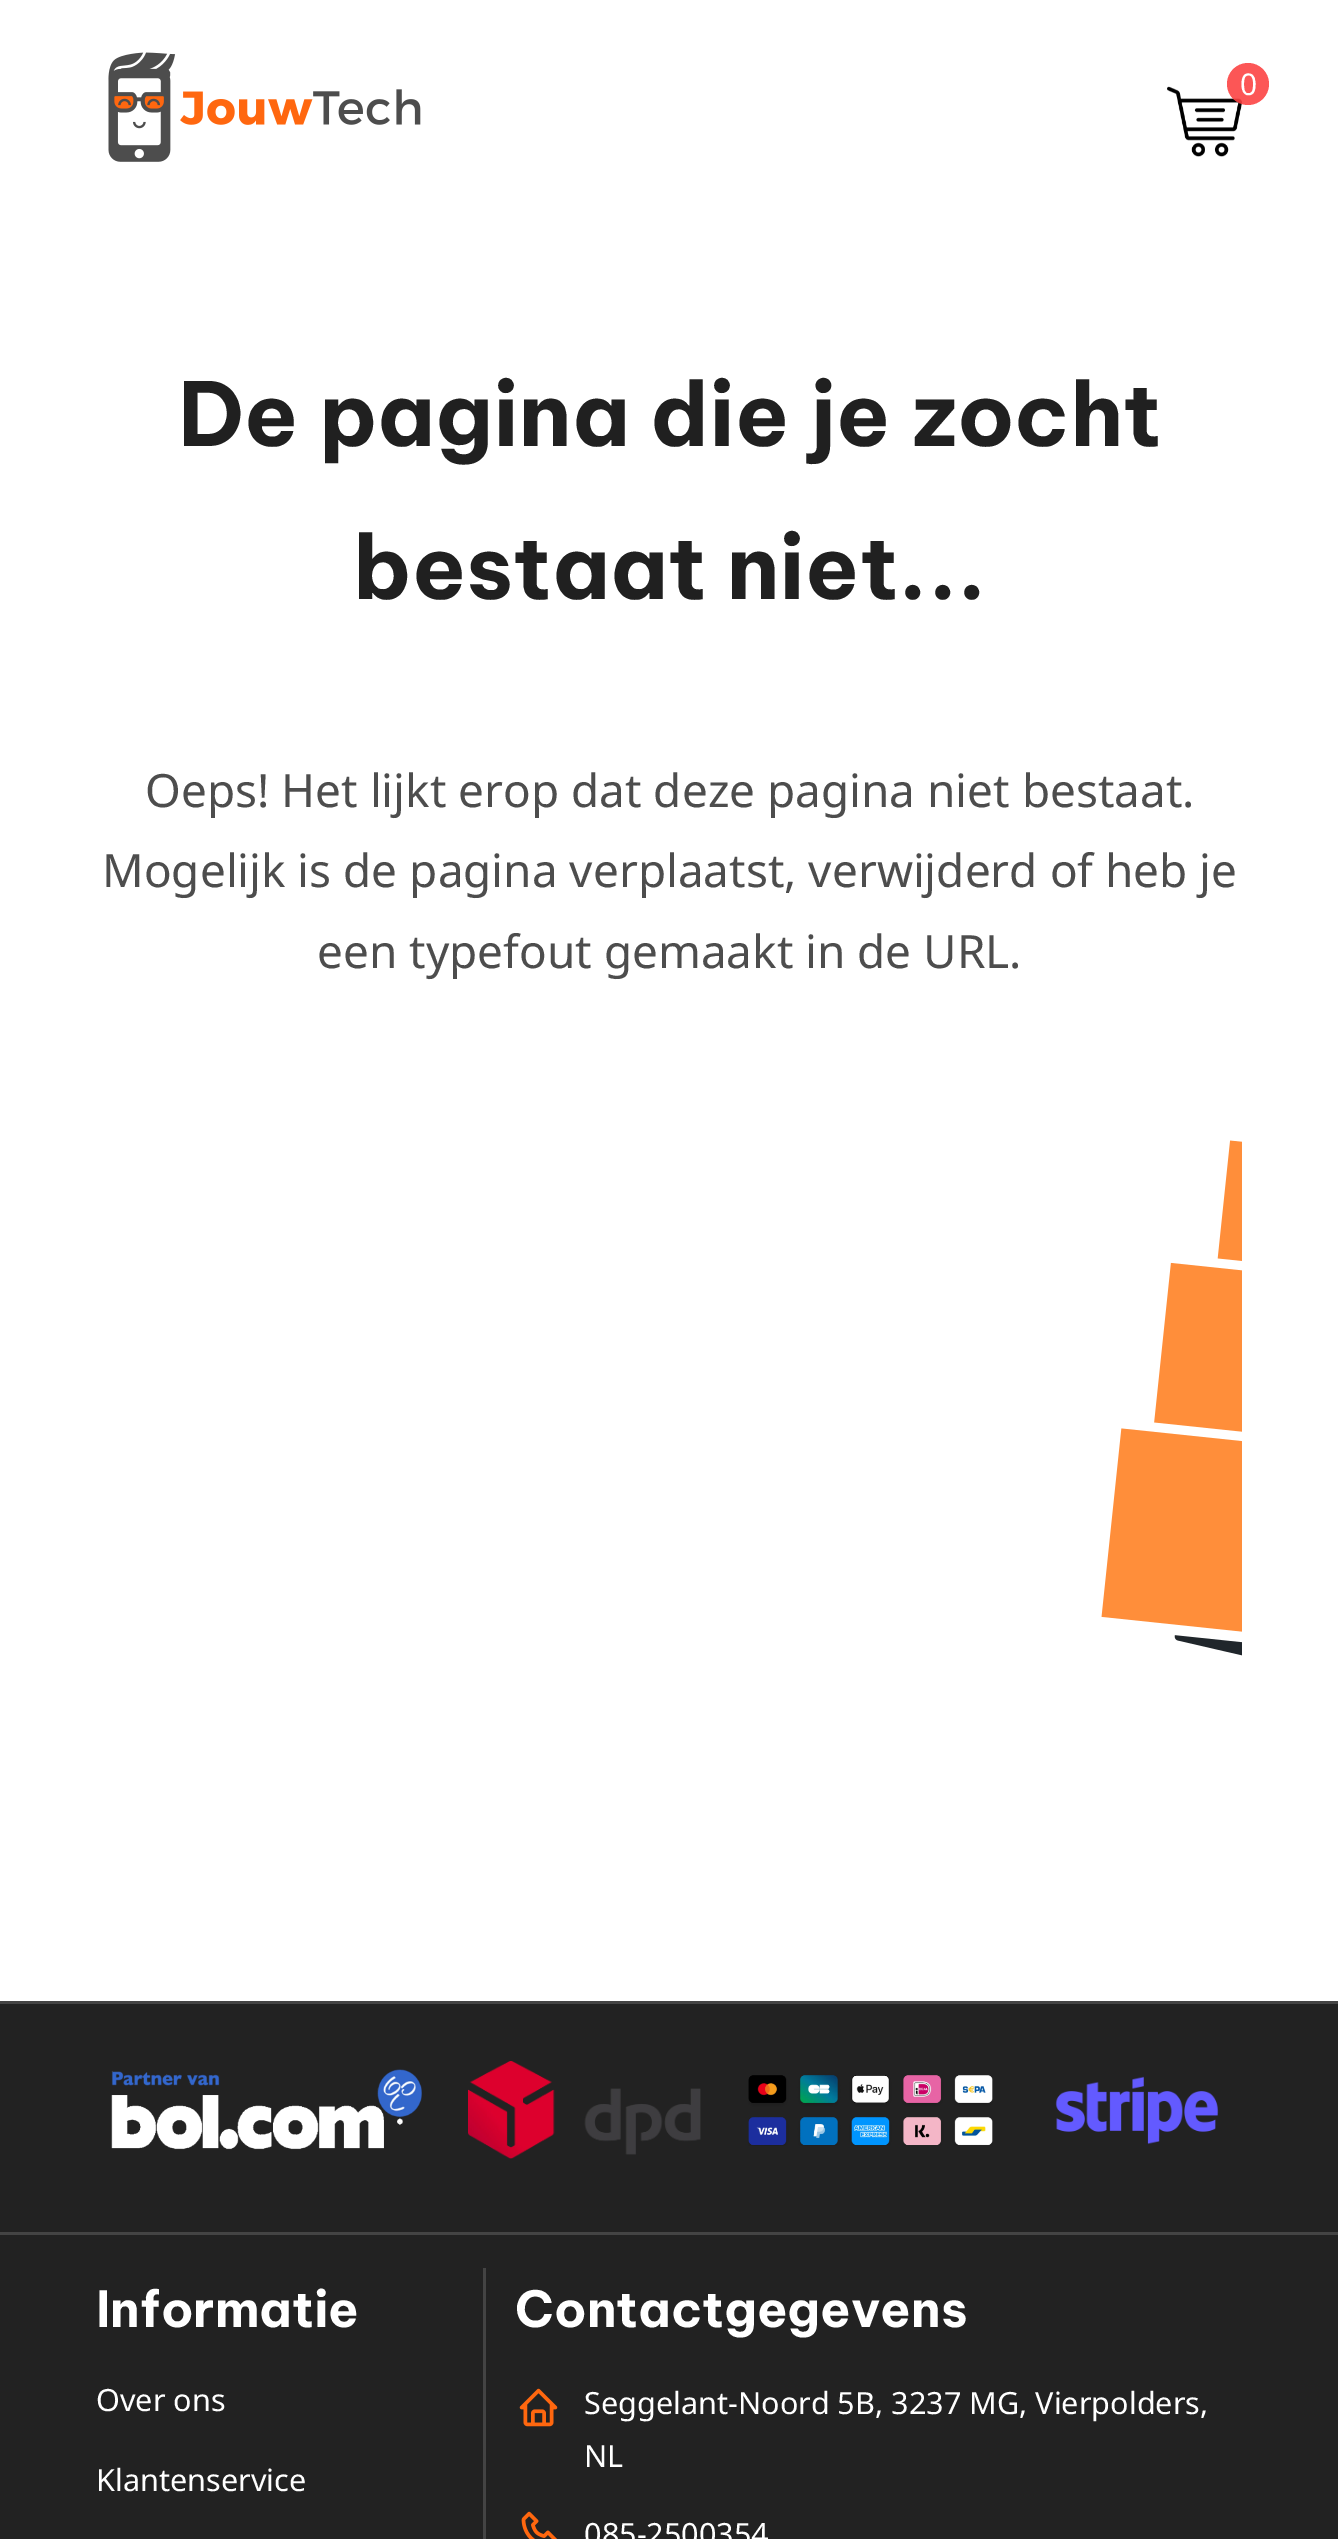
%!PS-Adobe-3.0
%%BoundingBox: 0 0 1338 2539
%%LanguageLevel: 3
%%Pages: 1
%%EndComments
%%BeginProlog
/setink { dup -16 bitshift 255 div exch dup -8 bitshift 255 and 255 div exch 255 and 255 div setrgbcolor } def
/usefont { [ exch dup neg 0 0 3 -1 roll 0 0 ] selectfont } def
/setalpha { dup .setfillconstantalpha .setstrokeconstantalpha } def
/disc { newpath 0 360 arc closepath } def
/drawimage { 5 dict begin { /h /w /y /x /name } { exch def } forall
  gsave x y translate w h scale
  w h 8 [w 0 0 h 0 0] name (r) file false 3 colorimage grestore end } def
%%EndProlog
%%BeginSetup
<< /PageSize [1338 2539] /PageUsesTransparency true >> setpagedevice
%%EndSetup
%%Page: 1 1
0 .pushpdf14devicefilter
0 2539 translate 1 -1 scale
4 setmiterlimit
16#FFFFFF setink
0 0 1338 2539 rectfill
(img1.raw) 108 52 313 110 drawimage
(img2.raw) 1167 86 75 71 drawimage
0.89 setalpha
16#FC4141 setink
1248 84 21 disc fill
/NotoSans-Regular 30 usefont
1 setalpha
16#FFFFFF setink
1240 95 moveto (0) show
/BeVietnamPro-Bold 88 usefont
16#202020 setink
178 446 moveto (De pagina die je zocht) show
353 599 moveto (bestaat niet...) show
/NotoSans-Regular 45.9 usefont
16#4D4D4D setink
[
    [(Oeps! Het lijkt erop dat deze pagina niet bestaat.) 145 807]
    [(Mogelijk is de pagina verplaatst, verwijderd of heb je) 102 887]
    [(een typefout gemaakt in de URL.) 317 968]
] { aload pop moveto show } forall
(img3.raw) 1101 1140 141 516 drawimage
16#222222 setink
0 2004 1338 535 rectfill
16#444444 setink
0 2001 1338 3 rectfill
(img4.raw) 111 2069 311 81 drawimage
(img5.raw) 468 2061 233 98 drawimage
(img6.raw) 748 2075 245 71 drawimage
(img7.raw) 1055 2076 164 69 drawimage
0 2232 1338 3 rectfill
483 2268 3 271 rectfill
/BeVietnamPro-Bold 49.75 usefont
16#FFFFFF setink
96 2327 moveto (Informatie) show
/NotoSans-Regular 30.6 usefont
96 2411 moveto (Over ons) show
96 2491 moveto (Klantenservice) show
/BeVietnamPro-Bold 49.75 usefont
515 2327 moveto (Contactgegevens) show
(img8.raw) 519 2388 39 39 drawimage
/NotoSans-Regular 30.6 usefont
584 2414 moveto (Seggelant-Noord 5B, 3237 MG, Vierpolders,) show
584 2467 moveto (NL) show
(img9.raw) 521 2511 36 28 drawimage
584 2545 moveto (085-2500354) show
.poppdf14devicefilter showpage
%%EOF
